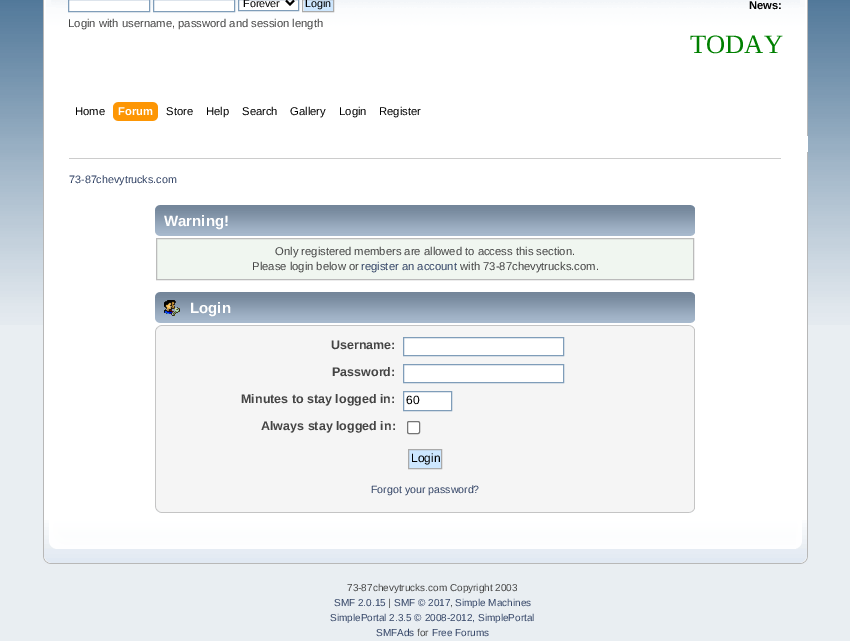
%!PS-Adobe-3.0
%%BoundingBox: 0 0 850 641
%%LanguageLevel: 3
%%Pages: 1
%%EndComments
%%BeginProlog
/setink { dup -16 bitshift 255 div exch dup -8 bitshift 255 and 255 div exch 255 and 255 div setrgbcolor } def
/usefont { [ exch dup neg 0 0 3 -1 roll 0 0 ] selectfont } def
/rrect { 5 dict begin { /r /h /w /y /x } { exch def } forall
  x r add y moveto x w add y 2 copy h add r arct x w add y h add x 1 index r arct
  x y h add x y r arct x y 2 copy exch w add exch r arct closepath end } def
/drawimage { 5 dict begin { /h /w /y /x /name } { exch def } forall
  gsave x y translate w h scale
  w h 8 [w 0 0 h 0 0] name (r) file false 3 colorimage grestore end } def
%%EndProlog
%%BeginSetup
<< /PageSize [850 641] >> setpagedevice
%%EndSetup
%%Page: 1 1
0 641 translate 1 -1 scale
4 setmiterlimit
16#E9EEF2 setink
0 0 850 641 rectfill
(img1.raw) 0 0 850 325 drawimage
(img2.raw) 43 0 765 152 drawimage
(img3.raw) 800 0 8 136 drawimage
16#FFFFFF setink
68.5 -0.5 moveto 149.5 -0.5 lineto 149.5 11.5 lineto 68.5 11.5 lineto closepath gsave fill grestore
16#7F9DB9 setink
stroke
16#FFFFFF setink
153.5 -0.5 moveto 234.5 -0.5 lineto 234.5 11.5 lineto 153.5 11.5 lineto closepath gsave fill grestore
16#7F9DB9 setink
stroke
16#FFFFFF setink
238.5 -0.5 moveto 298.5 -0.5 lineto 298.5 10.5 lineto 238.5 10.5 lineto closepath gsave fill grestore
16#7F9DB9 setink
stroke
16#000000 setink
2 setlinewidth
286 0.5 moveto 290 4.5 lineto 294 0.5 lineto stroke
/LiberationSans-Regular 10.75 usefont
243 7 moveto (Forever) show
16#CDE7FF setink
304 0 29 11 rectfill
16#FFFFFF setink
303 0 1 12 rectfill
16#AAAAAA setink
1 setlinewidth
302.5 -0.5 31 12 rectstroke
16#000000 setink
305 7 moveto (Login) show
/LiberationSans-Regular 11.25 usefont
16#444444 setink
68 27 moveto (Login with username, password and session length) show
/LiberationSans-Bold 11.25 usefont
16#000000 setink
749 9 moveto (News:) show
/LiberationSerif-Regular 26.5 usefont
16#008000 setink
690 53 moveto (TODAY) show
/LiberationSans-Regular 11.25 usefont
16#000000 setink
75 115 moveto (Home) show
(img4.raw) 118 102 40 19 drawimage
(img5.raw) 113 102 5 19 drawimage
/LiberationSans-Bold 11.25 usefont
16#FFFFFF setink
118 115 moveto (Forum) show
/LiberationSans-Regular 11.25 usefont
16#000000 setink
[
    [(Store) 166 115]
    [(Help) 206 115]
    [(Search) 242 115]
    [(Gallery) 290 115]
    [(Login) 339 115]
    [(Register) 379 115]
] { aload pop moveto show } forall
[
    [44 152 763 368 16#FFFFFF]
    [43 152 1 368 16#B7B7B7]
    [807 152 1 368 16#B7B7B7]
    [69 158 712 1 16#CCCCCC]
] { aload pop setink rectfill } forall
/LiberationSans-Regular 10.75 usefont
16#334466 setink
69 183 moveto (73-87chevytrucks.com) show
(img6.raw) 155 205 535 31 drawimage
(img7.raw) 690 205 5 31 drawimage
/LiberationSans-Bold 15 usefont
16#FFFFFF setink
164 226 moveto (Warning!) show
16#F0F6F0 setink
156.5 238.5 moveto 693.5 238.5 lineto 693.5 279.5 lineto 156.5 279.5 lineto closepath gsave fill grestore
16#BBBBBB setink
stroke
/LiberationSans-Regular 11.25 usefont
16#444444 setink
275 255 moveto (Only registered members are allowed to access this section.) show
252 270 moveto (Please login below or) show
16#334466 setink
361 270 moveto (register an account) show
16#444444 setink
460 270 moveto (with 73-87chevytrucks.com.) show
(img6.raw) 155 292 535 31 drawimage
(img7.raw) 690 292 5 31 drawimage
(img8.raw) 164 300 16 16 drawimage
/LiberationSans-Bold 15 usefont
16#FFFFFF setink
190 313 moveto (Login) show
(img9.raw) 155 325 534 11 drawimage
(img10.raw) 689 325 6 11 drawimage
[
    [156 336 538 166 16#F5F5F5]
    [694 336 1 166 16#C5C5C5]
    [155 336 1 166 16#C5C5C5]
] { aload pop setink rectfill } forall
/LiberationSans-Bold 12.5 usefont
16#444444 setink
331 349 moveto (Username:) show
16#FFFFFF setink
403.5 337.5 moveto 563.5 337.5 lineto 563.5 355.5 lineto 403.5 355.5 lineto closepath gsave fill grestore
16#7F9DB9 setink
stroke
16#444444 setink
332 376 moveto (Password:) show
16#FFFFFF setink
403.5 364.5 moveto 563.5 364.5 lineto 563.5 382.5 lineto 403.5 382.5 lineto closepath gsave fill grestore
16#7F9DB9 setink
stroke
16#444444 setink
241 403 moveto (Minutes to stay logged in:) show
16#FFFFFF setink
403.5 391.5 moveto 451.5 391.5 lineto 451.5 410.5 lineto 403.5 410.5 lineto closepath gsave fill grestore
16#7F9DB9 setink
stroke
/LiberationSans-Regular 12 usefont
16#000000 setink
406 404 moveto (60) show
/LiberationSans-Bold 12.5 usefont
16#444444 setink
261 430 moveto (Always stay logged in:) show
16#FFFFFF setink
407.5 421.5 12 12 1.5 rrect gsave fill grestore
16#767676 setink
stroke
16#CDE7FF setink
408.5 449.5 moveto 441.5 449.5 lineto 441.5 468.5 lineto 408.5 468.5 lineto closepath gsave fill grestore
16#AAAAAA setink
stroke
/LiberationSans-Regular 12 usefont
16#000000 setink
411 462 moveto (Login) show
/LiberationSans-Regular 10.6 usefont
16#334466 setink
371 493 moveto (Forgot your password?) show
(img11.raw) 155 502 534 11 drawimage
(img12.raw) 689 502 6 11 drawimage
(img13.raw) 43 520 753 44 drawimage
(img14.raw) 796 520 12 44 drawimage
/LiberationSans-Regular 10 usefont
16#444444 setink
347 591 moveto (73-87chevytrucks.com Copyright 2003) show
16#334466 setink
334 606 moveto (SMF 2.0.15) show
16#444444 setink
388 606 moveto (|) show
16#334466 setink
394 606 moveto (SMF © 2017) show
16#444444 setink
450 606 moveto (,) show
16#334466 setink
[
    [(Simple Machines) 455 606]
    [(SimplePortal 2.3.5 © 2008-2012, SimplePortal) 330 621]
    [(SMFAds) 376 636]
] { aload pop moveto show } forall
16#444444 setink
417 636 moveto (for) show
16#334466 setink
432 636 moveto (Free Forums) show
showpage
%%EOF
